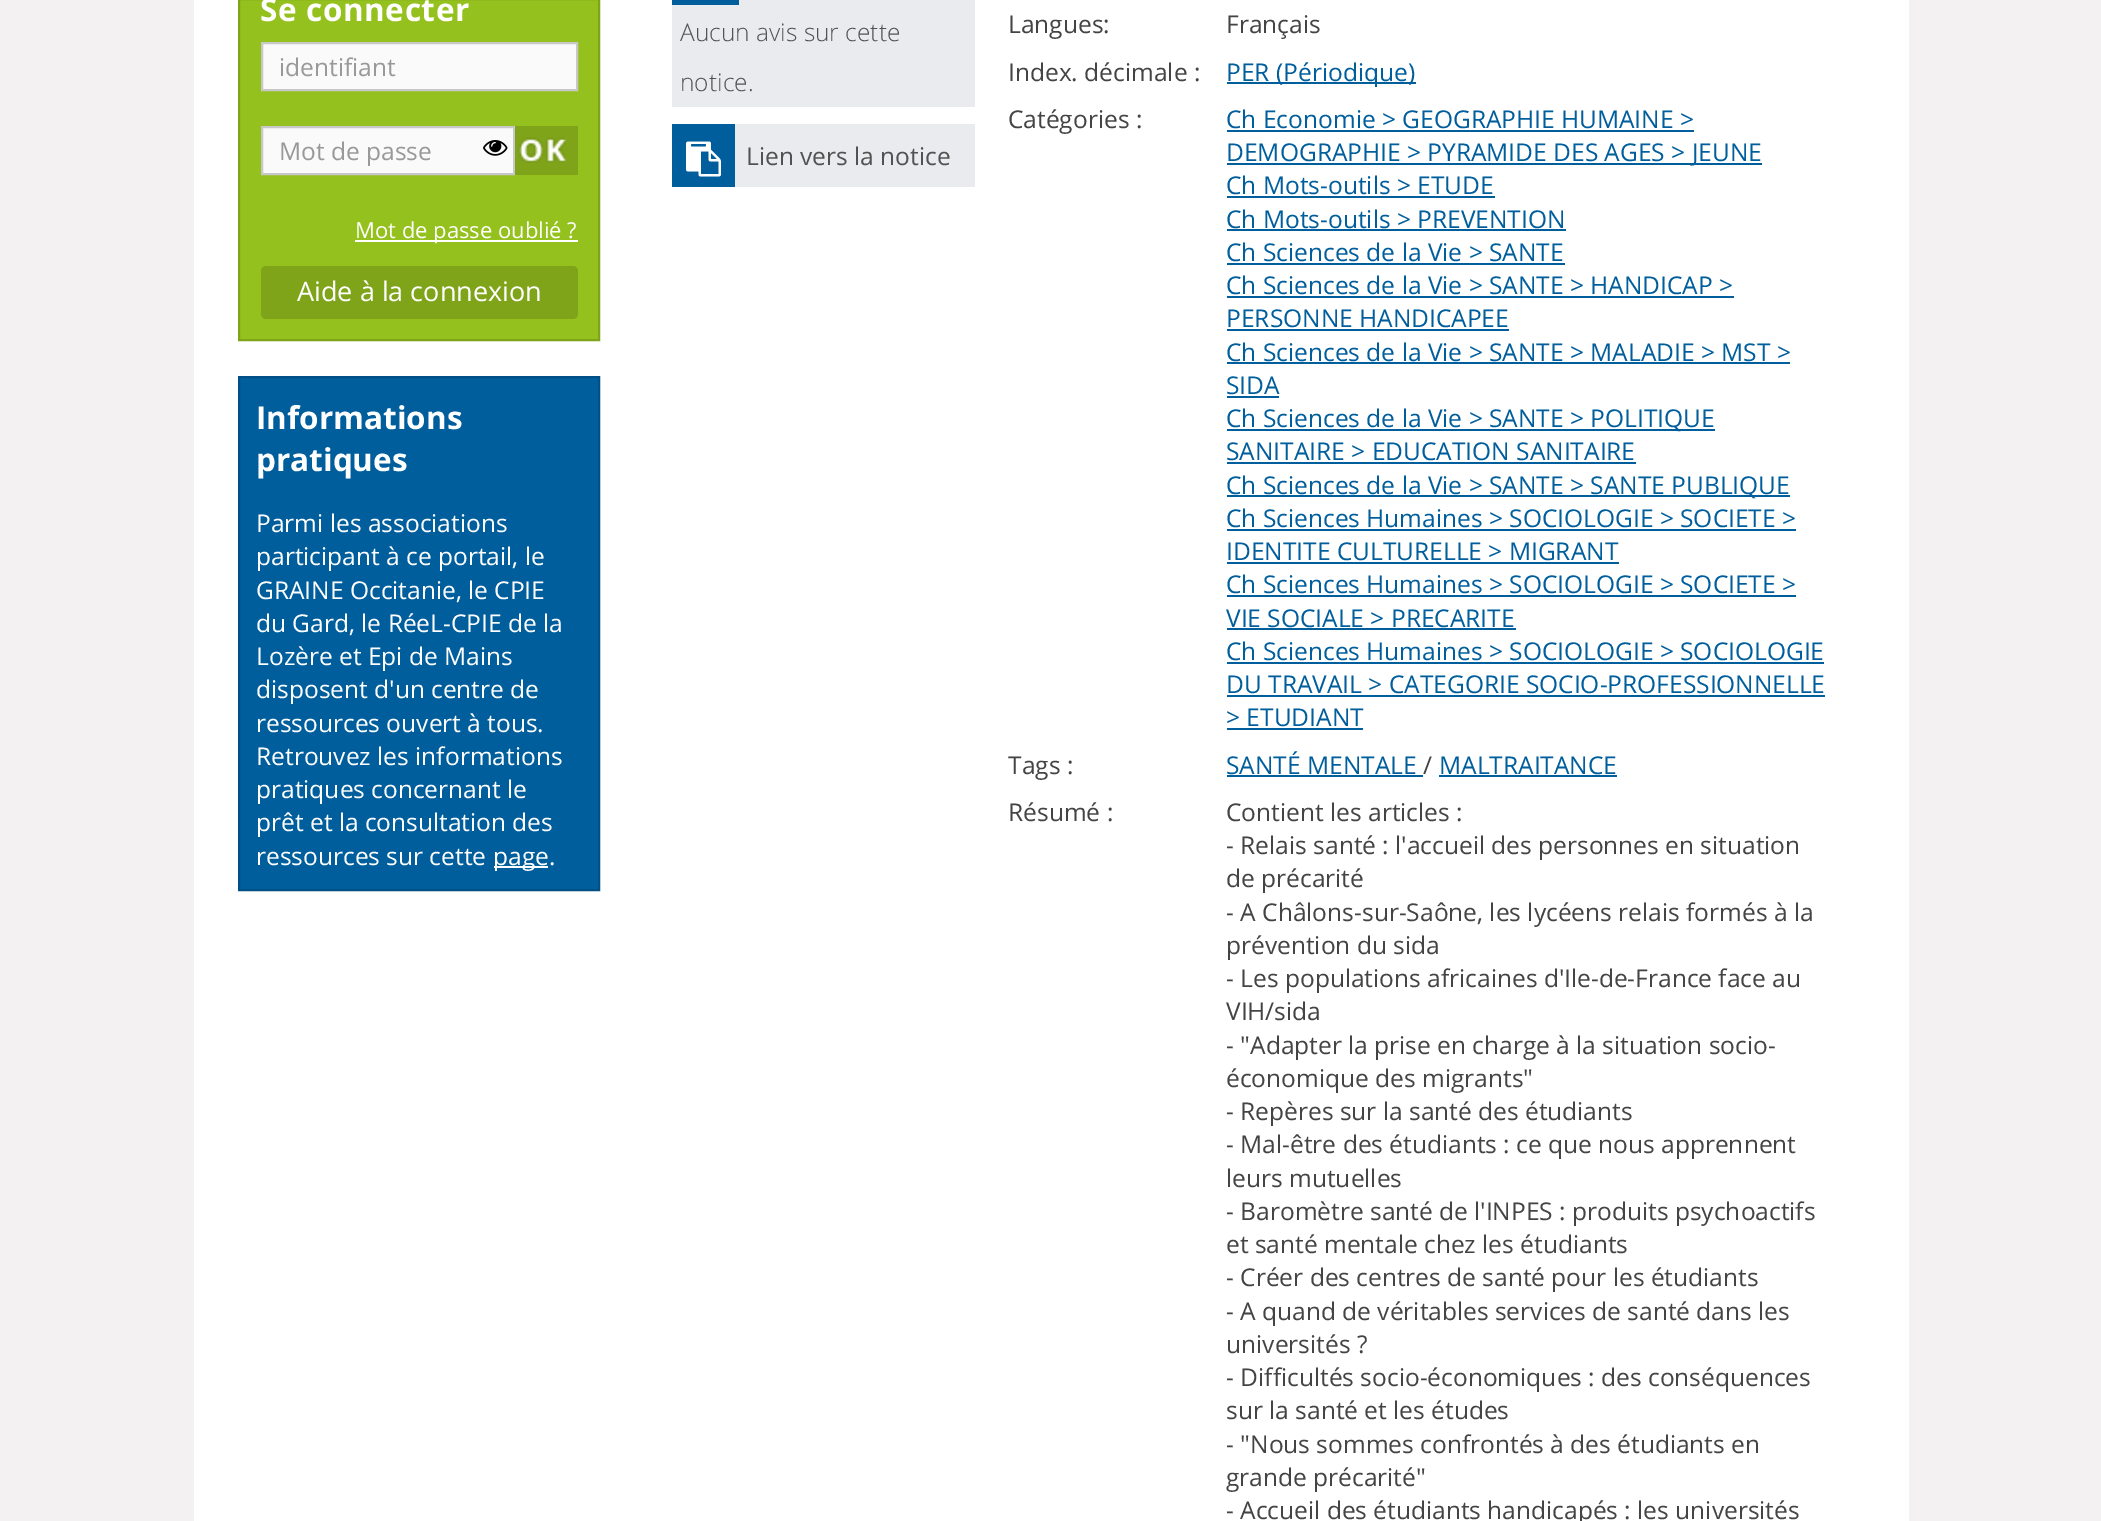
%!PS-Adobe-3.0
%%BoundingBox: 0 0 2101 1521
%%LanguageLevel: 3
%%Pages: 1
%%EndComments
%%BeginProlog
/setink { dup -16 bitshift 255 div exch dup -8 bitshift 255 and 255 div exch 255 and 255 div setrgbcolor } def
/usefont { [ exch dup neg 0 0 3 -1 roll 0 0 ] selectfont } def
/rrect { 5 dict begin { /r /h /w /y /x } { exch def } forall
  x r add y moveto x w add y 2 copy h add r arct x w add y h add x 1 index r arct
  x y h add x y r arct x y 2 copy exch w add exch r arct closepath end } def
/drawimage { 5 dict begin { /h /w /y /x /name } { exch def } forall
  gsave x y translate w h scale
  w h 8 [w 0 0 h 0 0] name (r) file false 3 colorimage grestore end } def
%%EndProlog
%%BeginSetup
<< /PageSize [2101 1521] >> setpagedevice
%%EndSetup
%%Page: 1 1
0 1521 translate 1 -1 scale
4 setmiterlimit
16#F3F1F2 setink
0 0 2101 1521 rectfill
16#FFFFFF setink
194 0 1715 1521 rectfill
16#95C11F setink
239 -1 moveto 599 -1 lineto 599 340 lineto 239 340 lineto closepath gsave fill grestore
16#7FA41A setink
2 setlinewidth
stroke
/OpenSans-Bold 31.5 usefont
16#FFFFFF setink
260 21 moveto 0.6 0 (Se connecter) ashow
16#FAFAFA setink
262 43 moveto 577 43 lineto 577 90 lineto 262 90 lineto closepath gsave fill grestore
16#C8C8C8 setink
stroke
/OpenSans-Regular 24.5 usefont
16#999999 setink
279 76 moveto (identifiant) show
16#FAFAFA setink
262 127 moveto 514 127 lineto 514 174 lineto 262 174 lineto closepath gsave fill grestore
16#C8C8C8 setink
stroke
16#999999 setink
279 160 moveto (Mot de passe) show
(img1.raw) 483 140 25 16 drawimage
16#7FA41A setink
515 126 63 49 rectfill
(img2.raw) 518 137 48 26 drawimage
16#FFFFFF setink
355 240 223 2 rectfill
/OpenSans-Regular 22 usefont
355 238 moveto (Mot de passe oublié ?) show
16#7FA41A setink
261 266 317 53 5 rrect fill
/OpenSans-Regular 27 usefont
16#FFFFFF setink
297 301 moveto (Aide à la connexion) show
16#005E9D setink
239 377 moveto 599 377 lineto 599 890 lineto 239 890 lineto closepath gsave fill grestore
16#005085 setink
stroke
/OpenSans-Bold 31.5 usefont
16#FFFFFF setink
256 429 moveto (Informations) show
256 471 moveto (pratiques) show
/OpenSans-Regular 24.5 usefont
[
    [(Parmi les associations) 256 532]
    [(participant à ce portail, le) 256 565]
    [(GRAINE Occitanie, le CPIE) 256 599]
    [(du Gard, le RéeL-CPIE de la) 256 632]
    [(Lozère et Epi de Mains) 256 665]
    [(disposent d'un centre de) 256 698]
    [(ressources ouvert à tous.) 256 732]
    [(Retrouvez les informations) 256 765]
    [(pratiques concernant le) 256 798]
    [(prêt et la consultation des) 256 831]
    [(ressources sur cette) 256 865]
] { aload pop moveto show } forall
494 866 54 2 rectfill
493 865 moveto (page.) show
16#E9EBEE setink
672 0 303 107 rectfill
16#005E9D setink
672 0 67 5 rectfill
/OpenSans-Light 24.5 usefont
16#525252 setink
680 41 moveto (Aucun avis sur cette) show
680 91 moveto (notice.) show
16#005E9D setink
672 124 63 63 rectfill
(img3.raw) 686 141 35 36 drawimage
16#E9EBEE setink
735 124 240 63 rectfill
/OpenSans-Regular 24.5 usefont
16#525252 setink
746 165 moveto (Lien vers la notice) show
16#444444 setink
[
    [(Langues:) 1008 33]
    [(Français) 1226 33]
    [(Index. décimale :) 1008 81]
] { aload pop moveto show } forall
16#005E9D setink
1227 82 189 2 rectfill
1226 81 moveto (PER \(Périodique\)) show
16#444444 setink
1008 128 moveto (Catégories :) show
16#005E9D setink
1226 128 moveto (Ch Economie > GEOGRAPHIE HUMAINE >) show
1227 130 467 2 rectfill
1227 163 535 2 rectfill
1226 161 moveto (DEMOGRAPHIE > PYRAMIDE DES AGES > JEUNE) show
1226 194 moveto (Ch Mots-outils > ETUDE) show
1227 196 268 2 rectfill
1226 228 moveto (Ch Mots-outils > PREVENTION) show
1227 229 339 2 rectfill
1226 261 moveto (Ch Sciences de la Vie > SANTE) show
1227 263 338 2 rectfill
1226 294 moveto (Ch Sciences de la Vie > SANTE > HANDICAP >) show
1227 296 507 2 rectfill
1226 327 moveto (PERSONNE HANDICAPEE) show
1227 329 282 2 rectfill
1226 361 moveto (Ch Sciences de la Vie > SANTE > MALADIE > MST >) show
1227 362 563 2 rectfill
1226 394 moveto (SIDA) show
1227 396 52 2 rectfill
1227 429 488 2 rectfill
1226 427 moveto (Ch Sciences de la Vie > SANTE > POLITIQUE) show
1226 460 moveto (SANITAIRE > EDUCATION SANITAIRE) show
1227 462 409 2 rectfill
1227 495 563 2 rectfill
1226 494 moveto (Ch Sciences de la Vie > SANTE > SANTE PUBLIQUE) show
1226 527 moveto (Ch Sciences Humaines > SOCIOLOGIE > SOCIETE >) show
1227 529 569 2 rectfill
1226 560 moveto (IDENTITE CULTURELLE > MIGRANT) show
1227 562 392 2 rectfill
1226 593 moveto (Ch Sciences Humaines > SOCIOLOGIE > SOCIETE >) show
1227 595 569 2 rectfill
1226 627 moveto (VIE SOCIALE > PRECARITE) show
1227 628 289 2 rectfill
1226 660 moveto (Ch Sciences Humaines > SOCIOLOGIE > SOCIOLOGIE) show
1227 662 597 2 rectfill
1226 693 moveto (DU TRAVAIL > CATEGORIE SOCIO-PROFESSIONNELLE) show
1227 695 598 2 rectfill
1226 726 moveto (> ETUDIANT) show
1227 728 136 2 rectfill
16#444444 setink
1008 774 moveto (Tags :) show
16#005E9D setink
1226 774 moveto (SANTÉ MENTALE) show
1227 775 196 2 rectfill
16#444444 setink
1423 774 moveto (/) show
16#005E9D setink
1439 774 moveto (MALTRAITANCE) show
1439 775 178 2 rectfill
16#444444 setink
[
    [(Résumé :) 1008 821]
    [(Contient les articles :) 1226 821]
    [(- Relais santé : l'accueil des personnes en situation) 1226 854]
    [(de précarité) 1226 887]
    [(- A Châlons-sur-Saône, les lycéens relais formés à la) 1226 921]
    [(prévention du sida) 1226 954]
    [(- Les populations africaines d'Ile-de-France face au) 1226 987]
    [(VIH/sida) 1226 1020]
    [(- "Adapter la prise en charge à la situation socio-) 1226 1054]
    [(économique des migrants") 1226 1087]
    [(- Repères sur la santé des étudiants) 1226 1120]
    [(- Mal-être des étudiants : ce que nous apprennent) 1226 1153]
    [(leurs mutuelles) 1226 1187]
    [(- Baromètre santé de l'INPES : produits psychoactifs) 1226 1220]
    [(et santé mentale chez les étudiants) 1226 1253]
    [(- Créer des centres de santé pour les étudiants) 1226 1286]
    [(- A quand de véritables services de santé dans les) 1226 1320]
    [(universités ?) 1226 1353]
    [(- Difficultés socio-économiques : des conséquences) 1226 1386]
    [(sur la santé et les études) 1226 1419]
    [(- "Nous sommes confrontés à des étudiants en) 1226 1453]
    [(grande précarité") 1226 1486]
    [(- Accueil des étudiants handicapés : les universités) 1226 1519]
] { aload pop moveto show } forall
showpage
%%EOF
